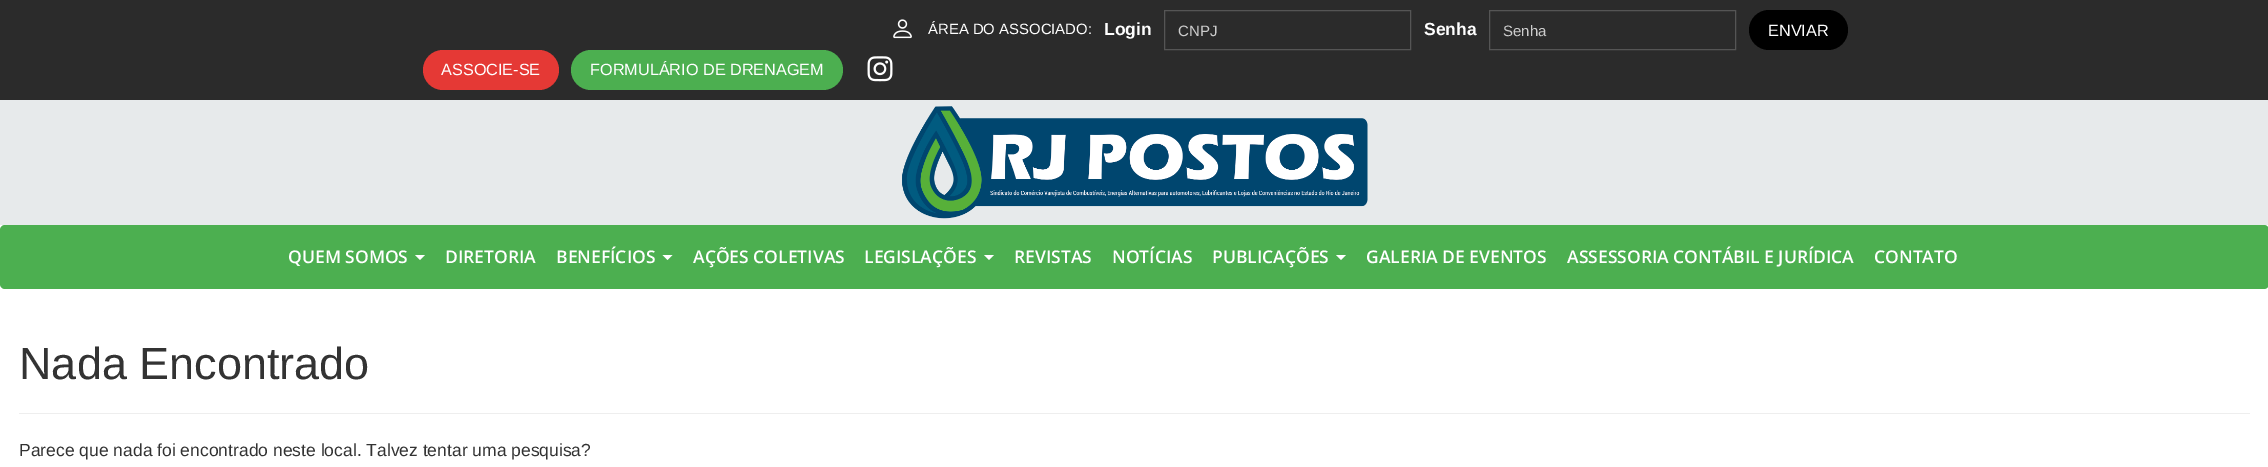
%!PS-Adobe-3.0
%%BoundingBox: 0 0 2268 467
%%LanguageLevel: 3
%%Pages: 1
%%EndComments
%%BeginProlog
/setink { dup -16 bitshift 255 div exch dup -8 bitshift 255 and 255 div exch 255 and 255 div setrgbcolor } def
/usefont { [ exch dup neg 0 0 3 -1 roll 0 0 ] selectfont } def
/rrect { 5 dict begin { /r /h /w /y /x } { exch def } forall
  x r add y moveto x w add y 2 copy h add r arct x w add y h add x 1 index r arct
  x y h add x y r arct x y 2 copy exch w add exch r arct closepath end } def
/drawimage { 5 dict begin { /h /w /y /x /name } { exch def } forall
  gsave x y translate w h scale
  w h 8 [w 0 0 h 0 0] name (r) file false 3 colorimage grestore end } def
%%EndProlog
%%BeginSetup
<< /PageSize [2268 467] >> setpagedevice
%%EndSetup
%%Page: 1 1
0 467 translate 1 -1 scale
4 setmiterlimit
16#FFFFFF setink
0 0 2268 467 rectfill
16#2B2B2B setink
0 0 2268 100 rectfill
(img1.raw) 893 19 19 20 drawimage
/LiberationSans-Regular 14.9 usefont
16#FFFFFF setink
928 34 moveto (ÁREA DO ASSOCIADO:) show
/LiberationSans-Bold 17.5 usefont
1104 35 moveto (Login) show
16#555555 setink
1164.5 10.5 246 39 rectstroke
/LiberationSans-Regular 15 usefont
16#CCCCCC setink
1178 36 moveto (CNPJ) show
/LiberationSans-Bold 17.5 usefont
16#FFFFFF setink
1424 35 moveto (Senha) show
16#555555 setink
1489.5 10.5 246 39 rectstroke
/LiberationSans-Regular 15 usefont
16#CCCCCC setink
1503 36 moveto (Senha) show
16#000000 setink
1749 10 99 40 20 rrect fill
/LiberationSans-Regular 16.25 usefont
16#FFFFFF setink
1768 36 moveto (ENVIAR) show
16#E53935 setink
423 50 136 40 20 rrect fill
16#FFFFFF setink
441 75 moveto (ASSOCIE-SE) show
16#4CAF50 setink
571 50 272 40 20 rrect fill
16#FFFFFF setink
590 75 moveto (FORMULÁRIO DE DRENAGEM) show
(img2.raw) 867 56 26 26 drawimage
16#E7EAEB setink
0 100 2268 125 rectfill
(img3.raw) 902 106 466 113 drawimage
16#4CAF50 setink
0 225 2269 64 5 rrect fill
/OpenSans-SemiBold 17.5 usefont
16#FFFFFF setink
288 263 moveto (QUEM SOMOS) show
415 255 moveto 425 255 lineto 420 260 lineto closepath fill
445 263 moveto (DIRETORIA) show
556 263 moveto (BENEFÍCIOS) show
662.5 255 moveto 672.5 255 lineto 667.5 260 lineto closepath fill
693 263 moveto (AÇÕES COLETIVAS) show
864 263 moveto (LEGISLAÇÕES) show
984 255 moveto 994 255 lineto 989 260 lineto closepath fill
[
    [(REVISTAS) 1014 263]
    [(NOTÍCIAS) 1112 263]
    [(PUBLICAÇÕES) 1212 263]
] { aload pop moveto show } forall
1336 255 moveto 1346 255 lineto 1341 260 lineto closepath fill
[
    [(GALERIA DE EVENTOS) 1366 263]
    [(ASSESSORIA CONTÁBIL E JURÍDICA) 1567 263]
    [(CONTATO) 1874 263]
] { aload pop moveto show } forall
16#EEEEEE setink
19 413 2231 1 rectfill
/LiberationSans-Regular 45 usefont
16#333333 setink
19 379 moveto (Nada Encontrado) show
/LiberationSans-Regular 17.5 usefont
19 456 moveto (Parece que nada foi encontrado neste local. Talvez tentar uma pesquisa?) show
showpage
%%EOF
